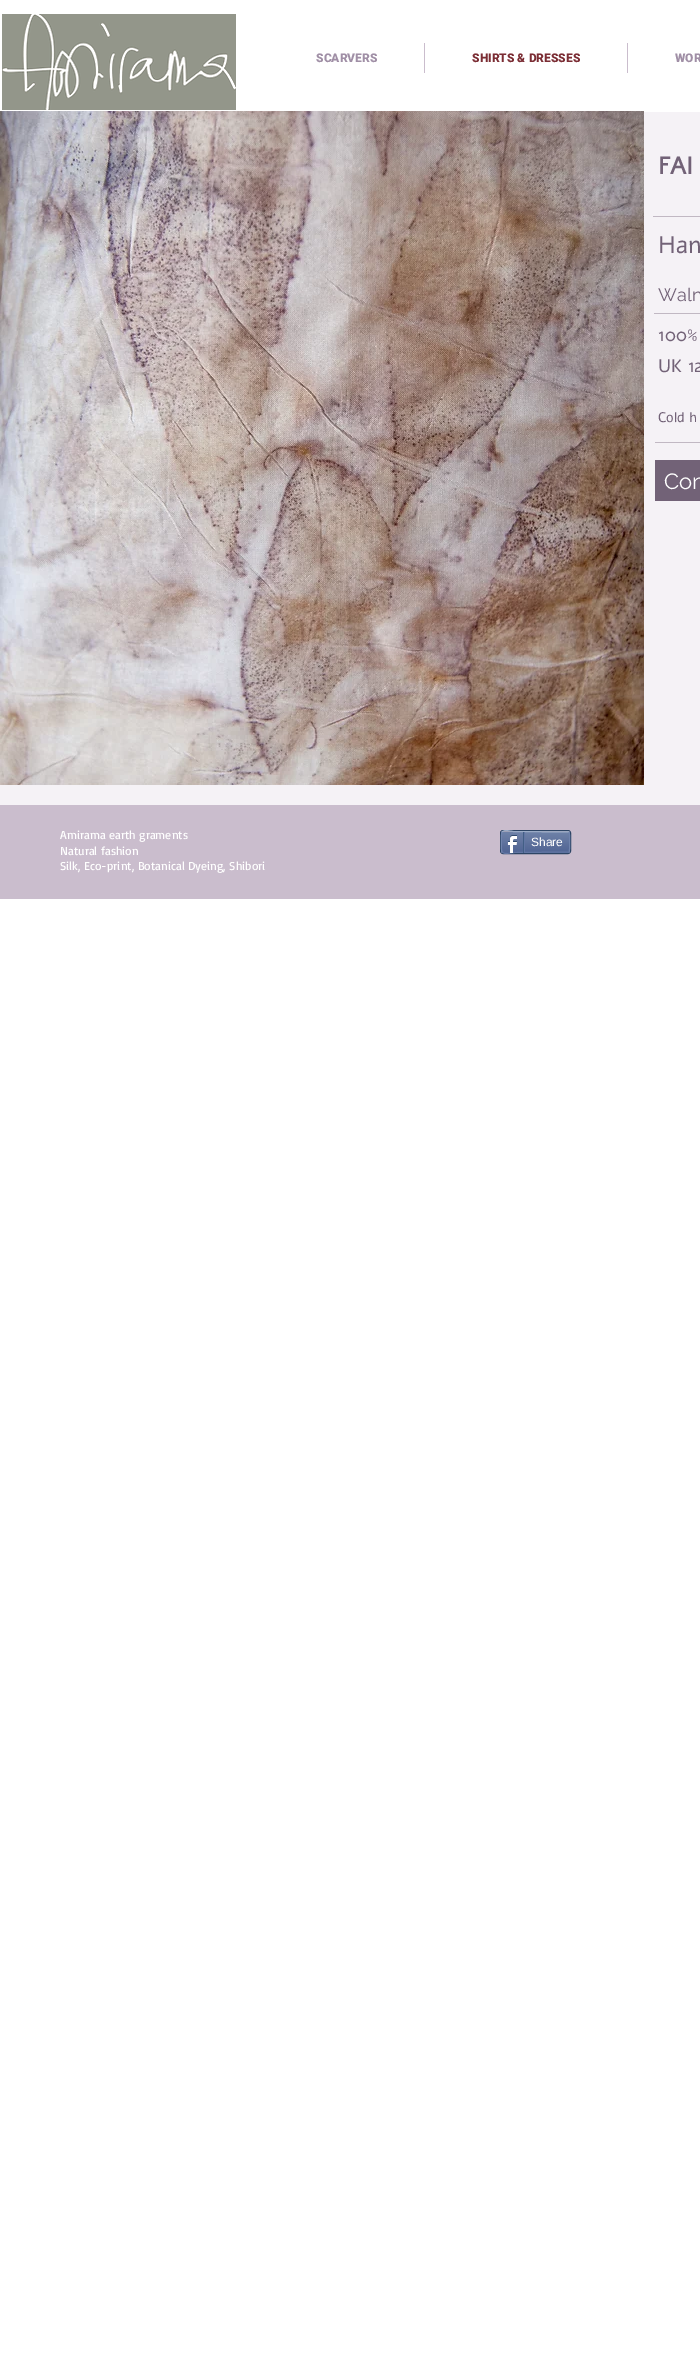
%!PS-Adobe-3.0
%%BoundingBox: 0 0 700 2357
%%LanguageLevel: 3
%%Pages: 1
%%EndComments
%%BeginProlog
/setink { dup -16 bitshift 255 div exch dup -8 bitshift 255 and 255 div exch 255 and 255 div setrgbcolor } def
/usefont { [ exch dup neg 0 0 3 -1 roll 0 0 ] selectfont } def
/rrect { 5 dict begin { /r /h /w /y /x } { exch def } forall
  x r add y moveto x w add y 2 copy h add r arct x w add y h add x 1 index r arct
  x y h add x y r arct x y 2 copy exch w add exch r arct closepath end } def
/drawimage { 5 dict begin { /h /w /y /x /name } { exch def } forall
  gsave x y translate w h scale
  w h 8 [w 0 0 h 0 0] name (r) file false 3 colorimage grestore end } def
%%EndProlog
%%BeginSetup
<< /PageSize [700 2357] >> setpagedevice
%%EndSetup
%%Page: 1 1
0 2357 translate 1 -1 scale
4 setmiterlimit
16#FFFFFF setink
0 0 700 2357 rectfill
(img1.raw) 2 14 234 96 drawimage
/Roboto-Black 12 usefont
16#A08FA6 setink
316 62 moveto (SCARVERS) show
16#CABDCD setink
424 43 1 30 rectfill
16#7B2D34 setink
472 62 moveto (SHIRTS & DRESSES) show
16#CABDCD setink
627 43 1 30 rectfill
16#A08FA6 setink
675 62 moveto (WOR) show
16#F5F2F6 setink
0 112 700 693 rectfill
(img2.raw) 0 111 644 674 drawimage
/Alef-Bold 24 usefont
16#726277 setink
658 174 moveto (FAI) show
/Alef-Regular 24 usefont
658 253 moveto (Han) show
/Raleway-Regular 18 usefont
658 301 moveto (Waln) show
16#C1B8C3 setink
653 216 47 1 rectfill
654 313 46 1 rectfill
/Alef-Regular 18 usefont
16#726277 setink
658 341 moveto (100%) show
658 372 moveto (UK 12) show
/Alef-Regular 14 usefont
658 422 moveto (Cold h) show
16#C1B8C3 setink
655 442 45 1 rectfill
16#726277 setink
655 460 45 41 rectfill
/Raleway-Regular 22 usefont
16#FFFFFF setink
664 489 moveto (Con) show
16#CABDCD setink
0 805 700 94 rectfill
/Basic-Regular 12 usefont
16#FFFFFF setink
[
    [(Amirama earth graments) 60 839]
    [(Natural fashion) 60 855]
    [(Silk, Eco-print, Botanical Dyeing, Shibori) 60 870]
] { aload pop moveto show } forall
16#2D4565 setink
500.5 830.5 70 23 2.5 rrect stroke
(img3.raw) 501 832 69 21 drawimage
16#9AABC6 setink
502 832 moveto 505 829 510 831.5 514 831.5 curveto 569 832 lineto stroke
16#6F83AD setink
569 832 moveto 570 832.5 570 851.5 569 852 curveto stroke
16#6176A3 setink
569 852 moveto 514 852.5 lineto 510 852.5 505 855 502 852 curveto stroke
16#6F83AD setink
502 852 moveto 501 851.5 501 832.5 502 832 curveto stroke
(img4.raw) 507 835 10 18 drawimage
16#425E85 setink
523 832 1 21 rectfill
/LiberationSans-Regular 12 usefont
16#FFFFFF setink
531 846 moveto (Share) show
16#6176A3 setink
524 832 1 20 rectfill
showpage
%%EOF
